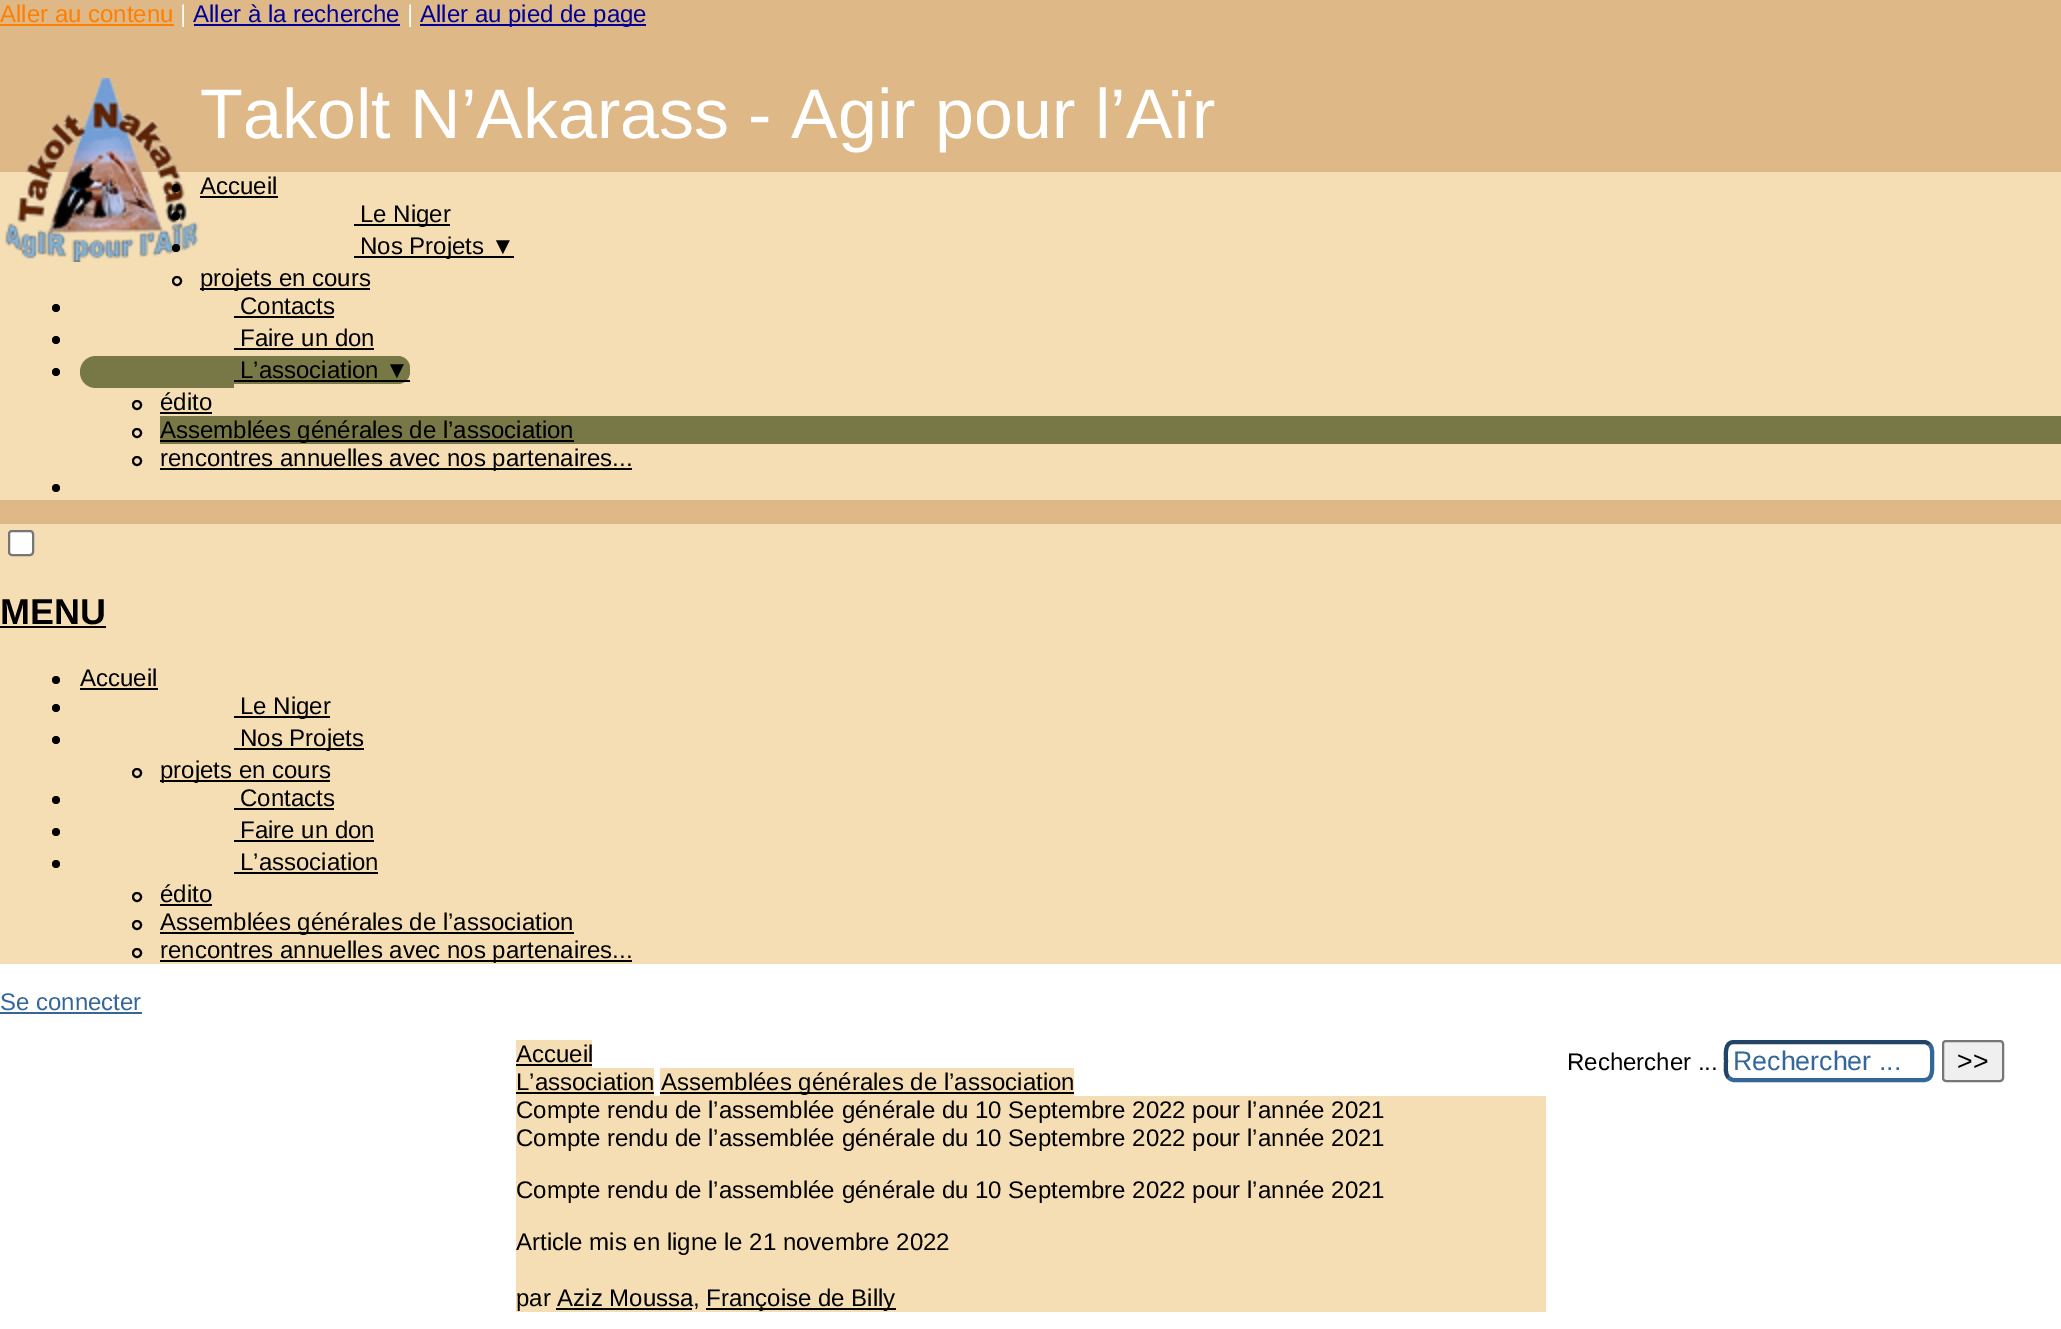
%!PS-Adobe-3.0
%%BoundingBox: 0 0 2061 1329
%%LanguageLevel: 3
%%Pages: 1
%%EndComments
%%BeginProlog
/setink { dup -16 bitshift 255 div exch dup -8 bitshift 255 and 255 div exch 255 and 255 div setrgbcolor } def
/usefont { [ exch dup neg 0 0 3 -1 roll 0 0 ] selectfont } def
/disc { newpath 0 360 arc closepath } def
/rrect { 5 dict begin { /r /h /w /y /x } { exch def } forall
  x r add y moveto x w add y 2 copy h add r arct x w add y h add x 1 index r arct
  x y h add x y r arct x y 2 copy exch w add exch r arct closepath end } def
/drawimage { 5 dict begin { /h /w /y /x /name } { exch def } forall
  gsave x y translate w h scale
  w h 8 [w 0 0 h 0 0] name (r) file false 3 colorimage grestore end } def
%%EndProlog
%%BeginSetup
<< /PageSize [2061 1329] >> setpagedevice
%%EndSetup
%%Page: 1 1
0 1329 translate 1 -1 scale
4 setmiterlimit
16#FFFFFF setink
0 0 2061 1329 rectfill
16#DEB887 setink
0 0 2061 524 rectfill
/LiberationSans-Regular 24 usefont
16#FF8000 setink
0 22 moveto (Aller au contenu) show
0 24 174 2 rectfill
16#FFFFFF setink
180 22 moveto (|) show
16#000099 setink
193 22 moveto (Aller à la recherche) show
194 24 206 2 rectfill
16#FFFFFF setink
407 22 moveto (|) show
16#000099 setink
420 24 226 2 rectfill
420 22 moveto (Aller au pied de page) show
16#F5DEB3 setink
0 172 2061 328 rectfill
(img1.raw) 5 78 194 184 drawimage
/LiberationSans-Regular 70 usefont
16#FFFFFF setink
200 138 moveto (Takolt N’Akarass - Agir pour l’Aïr) show
16#000000 setink
176 188 4 disc fill
/LiberationSans-Regular 24 usefont
200 194 moveto (Accueil) show
200 196 78 2 rectfill
176 216 4 disc fill
354 224 96 2 rectfill
360 222 moveto (Le Niger) show
176 248 4 disc fill
354 256 160 2 rectfill
360 254 moveto (Nos Projets ▼) show
2 setlinewidth
177 281 4 disc stroke
200 288 170 2 rectfill
200 286 moveto (projets en cours) show
56 308 4 disc fill
240 314 moveto (Contacts) show
234 316 100 2 rectfill
56 340 4 disc fill
240 346 moveto (Faire un don) show
234 348 140 2 rectfill
56 372 4 disc fill
16#787746 setink
234 356 152 28 rectfill
386 356 moveto 398 356 lineto 404.5 356 410 361.5 410 368 curveto 410 372 lineto 410 378.5 404.5 384 398 384 curveto 386 384 lineto closepath fill
16#000000 setink
240 378 moveto (L’association ▼) show
16#787746 setink
96 356 moveto 234 356 lineto 234 388 lineto 96 388 lineto 87 388 80 381 80 372 curveto 80 363 87 356 96 356 curveto closepath fill
16#000000 setink
234 380 176 2 rectfill
137 405 4 disc stroke
160 410 moveto (édito) show
160 412 52 2 rectfill
16#787746 setink
160 416 1901 28 rectfill
16#000000 setink
137 433 4 disc stroke
160 440 414 2 rectfill
160 438 moveto (Assemblées générales de l’association) show
137 461 4 disc stroke
160 468 472 2 rectfill
160 466 moveto (rencontres annuelles avec nos partenaires...) show
56 488 4 disc fill
16#F5DEB3 setink
0 524 2061 440 rectfill
16#FFFFFF setink
9 531 24 24 3 rrect gsave fill grestore
16#767676 setink
stroke
/LiberationSans-Bold 36 usefont
16#000000 setink
0 624 moveto (MENU) show
0 626 106 2 rectfill
56 680 4 disc fill
/LiberationSans-Regular 24 usefont
80 686 moveto (Accueil) show
80 688 78 2 rectfill
56 708 4 disc fill
234 716 96 2 rectfill
240 714 moveto (Le Niger) show
56 740 4 disc fill
234 748 130 2 rectfill
240 746 moveto (Nos Projets) show
137 773 4 disc stroke
160 780 170 2 rectfill
160 778 moveto (projets en cours) show
56 800 4 disc fill
240 806 moveto (Contacts) show
234 808 100 2 rectfill
56 832 4 disc fill
240 838 moveto (Faire un don) show
234 840 140 2 rectfill
56 864 4 disc fill
240 870 moveto (L’association) show
234 872 144 2 rectfill
137 897 4 disc stroke
160 902 moveto (édito) show
160 904 52 2 rectfill
137 925 4 disc stroke
160 932 414 2 rectfill
160 930 moveto (Assemblées générales de l’association) show
137 953 4 disc stroke
160 960 472 2 rectfill
160 958 moveto (rencontres annuelles avec nos partenaires...) show
16#336699 setink
0 1010 moveto (Se connecter) show
0 1012 142 2 rectfill
16#F5DEB3 setink
516 1040 76 28 rectfill
16#000000 setink
516 1062 moveto (Accueil) show
516 1064 76 2 rectfill
16#F5DEB3 setink
516 1068 138 28 rectfill
16#000000 setink
516 1090 moveto (L’association) show
[
    [516 1092 138 2 16#000000]
    [660 1068 414 28 16#F5DEB3]
    [660 1092 414 2 16#000000]
] { aload pop setink rectfill } forall
661 1090 moveto (Assemblées générales de l’association) show
16#F5DEB3 setink
516 1096 1030 216 rectfill
16#000000 setink
[
    [(Compte rendu de l’assemblée générale du 10 Septembre 2022 pour l’année 2021) 516 1118]
    [(Compte rendu de l’assemblée générale du 10 Septembre 2022 pour l’année 2021) 516 1146]
    [(Compte rendu de l’assemblée générale du 10 Septembre 2022 pour l’année 2021) 516 1198]
    [(Article mis en ligne le 21 novembre 2022) 516 1250]
    [(par Aziz Moussa,) 516 1306]
] { aload pop moveto show } forall
706 1308 190 2 rectfill
706 1306 moveto (Françoise de Billy) show
556 1308 136 2 rectfill
1567 1070 moveto (Rechercher ...) show
16#336699 setink
4 setlinewidth
1929.5 1044.5 moveto 1933.5 1048.5 1932 1056 1932 1061 curveto 1932 1067.5 1934 1080 1924 1080 curveto 1734 1080 lineto 1732 1080 1730 1079 1728.5 1077.5 curveto stroke
16#224466 setink
1728.5 1077.5 moveto 1724.5 1073.5 1726 1066 1726 1061 curveto 1726 1054.5 1724 1042 1734 1042 curveto 1924 1042 lineto 1926 1042 1928 1043 1929.5 1044.5 curveto stroke
/LiberationSans-Regular 26.75 usefont
16#336699 setink
1733 1070 moveto (Rechercher ...) show
16#EFEFEF setink
1943 1041 60 40 3 rrect gsave fill grestore
16#767676 setink
2 setlinewidth
stroke
16#000000 setink
1957 1070 moveto (>>) show
showpage
%%EOF
